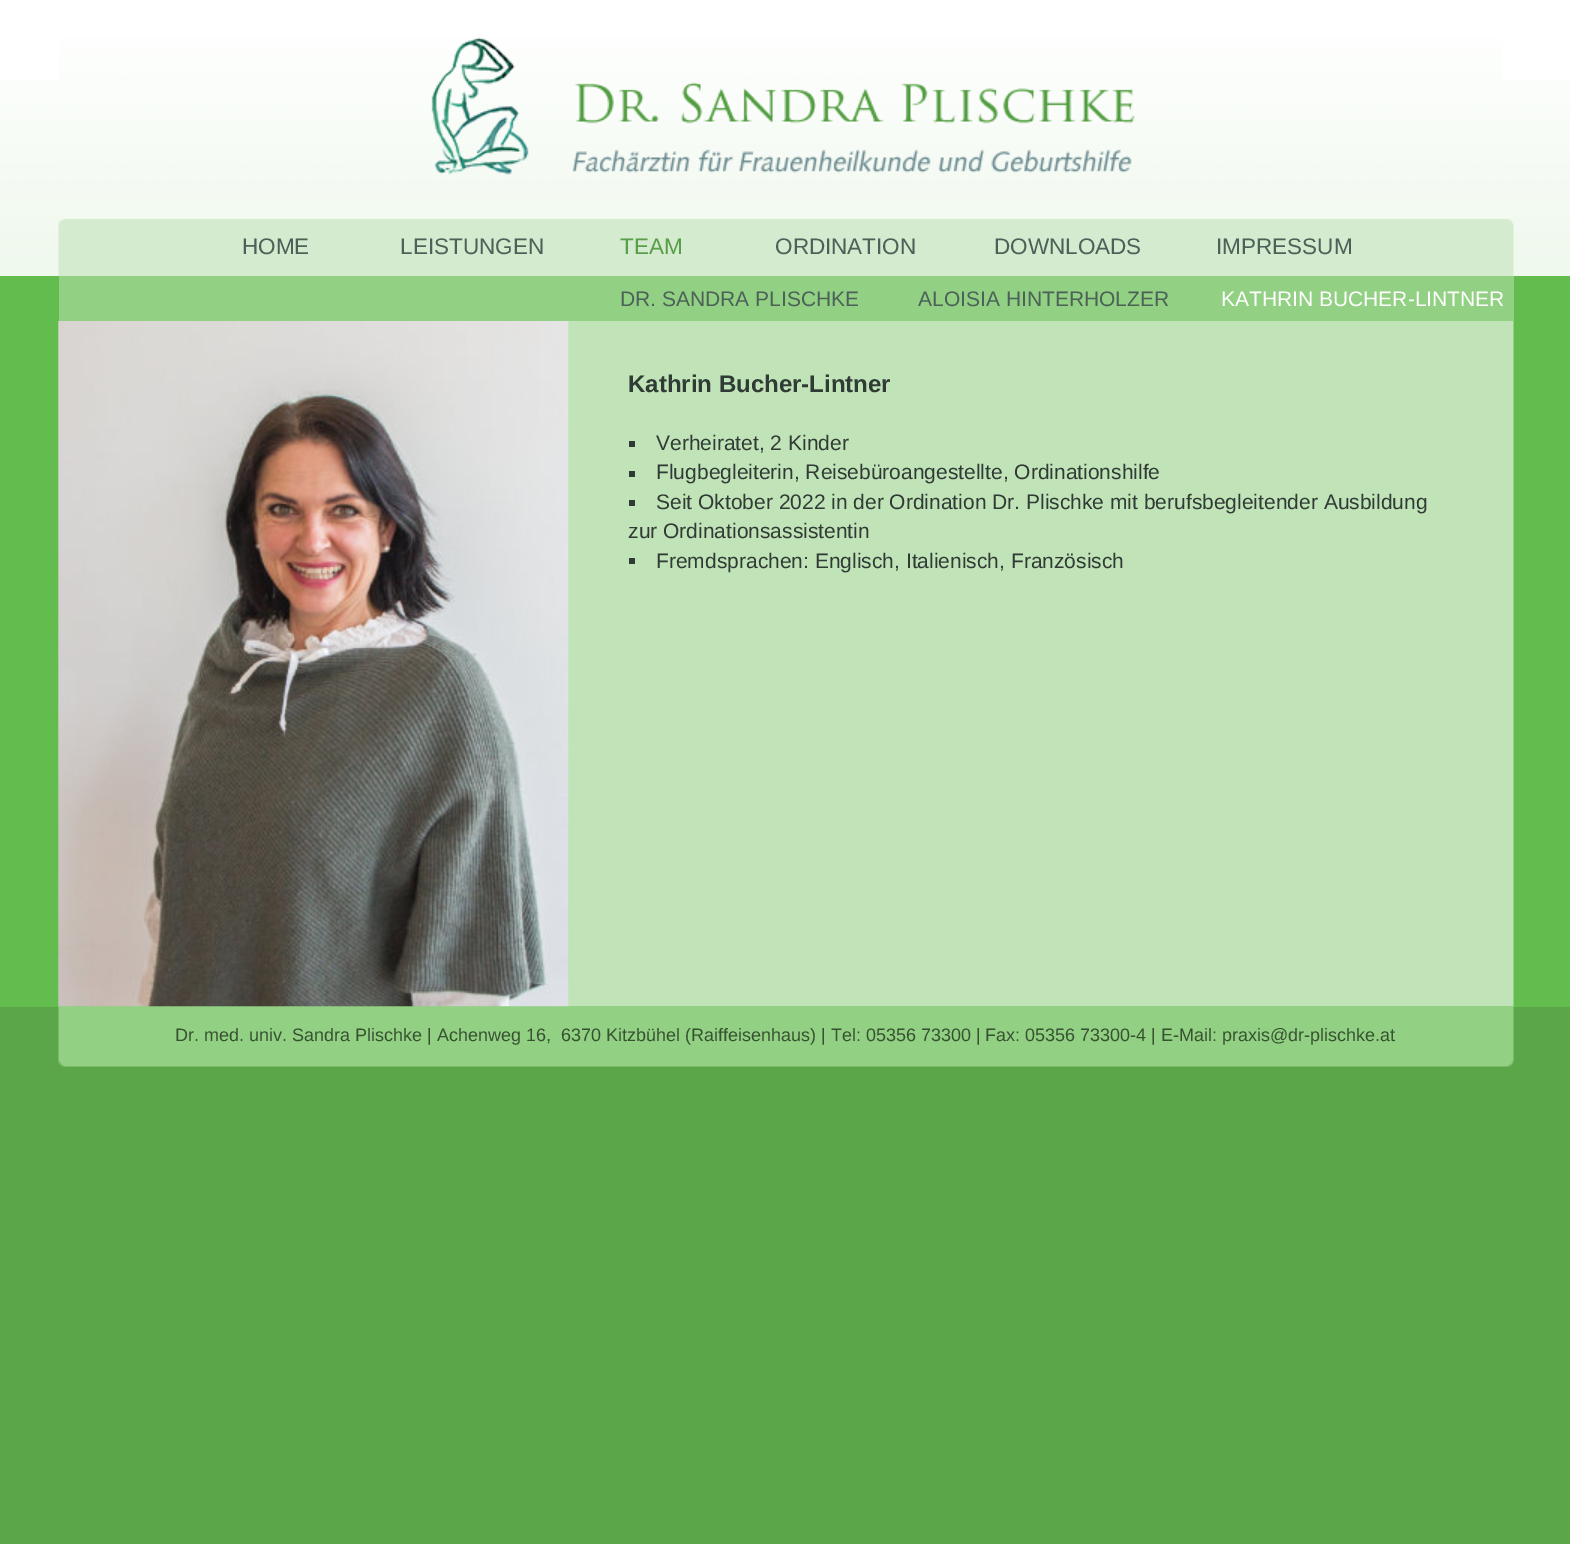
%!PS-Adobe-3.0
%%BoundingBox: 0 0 1570 1544
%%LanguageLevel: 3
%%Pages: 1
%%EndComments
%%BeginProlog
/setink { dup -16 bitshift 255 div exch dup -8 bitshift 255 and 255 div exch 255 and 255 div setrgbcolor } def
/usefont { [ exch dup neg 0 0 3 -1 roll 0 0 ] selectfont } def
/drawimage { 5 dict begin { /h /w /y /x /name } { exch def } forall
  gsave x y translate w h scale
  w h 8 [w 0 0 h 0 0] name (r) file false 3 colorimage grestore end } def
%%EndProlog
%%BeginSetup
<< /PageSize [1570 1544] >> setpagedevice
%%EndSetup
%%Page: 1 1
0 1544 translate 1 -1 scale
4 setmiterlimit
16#5CA64A setink
0 0 1570 1544 rectfill
16#FFFFFF setink
0 0 1570 80 rectfill
(img1.raw) 0 80 1570 196 drawimage
(img2.raw) 59 37 1443 138 drawimage
(img3.raw) 58 219 1456 57 drawimage
/LiberationSans-Regular 22.5 usefont
16#4C6259 setink
242 254 moveto (HOME) show
400 254 moveto (LEISTUNGEN) show
16#599E48 setink
620 254 moveto (TEAM) show
16#4C6259 setink
[
    [(ORDINATION) 775 254]
    [(DOWNLOADS) 994 254]
    [(IMPRESSUM) 1216 254]
] { aload pop moveto show } forall
16#63BD4E setink
0 276 1570 731 rectfill
16#92D083 setink
59 276 1455 45 rectfill
/LiberationSans-Regular 21 usefont
16#4C6259 setink
620 306 moveto (DR. SANDRA PLISCHKE) show
918 306 moveto (ALOISIA HINTERHOLZER) show
16#FFFFFF setink
1221 306 moveto (KATHRIN BUCHER-LINTNER) show
(img4.raw) 58 321 1456 686 drawimage
(img5.raw) 58 321 511 686 drawimage
/LiberationSans-Bold 24 usefont
16#303B36 setink
628 392 moveto (Kathrin Bucher-Lintner) show
629 441 6 6 rectfill
/LiberationSans-Regular 21 usefont
656 450 moveto (Verheiratet, 2 Kinder) show
629 471 6 6 rectfill
656 479 moveto (Flugbegleiterin, Reisebüroangestellte, Ordinationshilfe) show
629 500 6 6 rectfill
656 509 moveto (Seit Oktober 2022 in der Ordination Dr. Plischke mit berufsbegleitender Ausbildung) show
628 538 moveto (zur Ordinationsassistentin) show
629 558 6 6 rectfill
656 568 moveto (Fremdsprachen: Englisch, Italienisch, Französisch) show
(img6.raw) 58 1006 1456 61 drawimage
/LiberationSans-Regular 18 usefont
16#375231 setink
175 1041 moveto (Dr. med. univ. Sandra Plischke | Achenweg 16,  6370 Kitzbühel \(Raiffeisenhaus\) | Tel: 05356 73300 | Fax: 05356 73300-4 | E-Mail: praxis@dr-plischke.at) show
showpage
%%EOF
